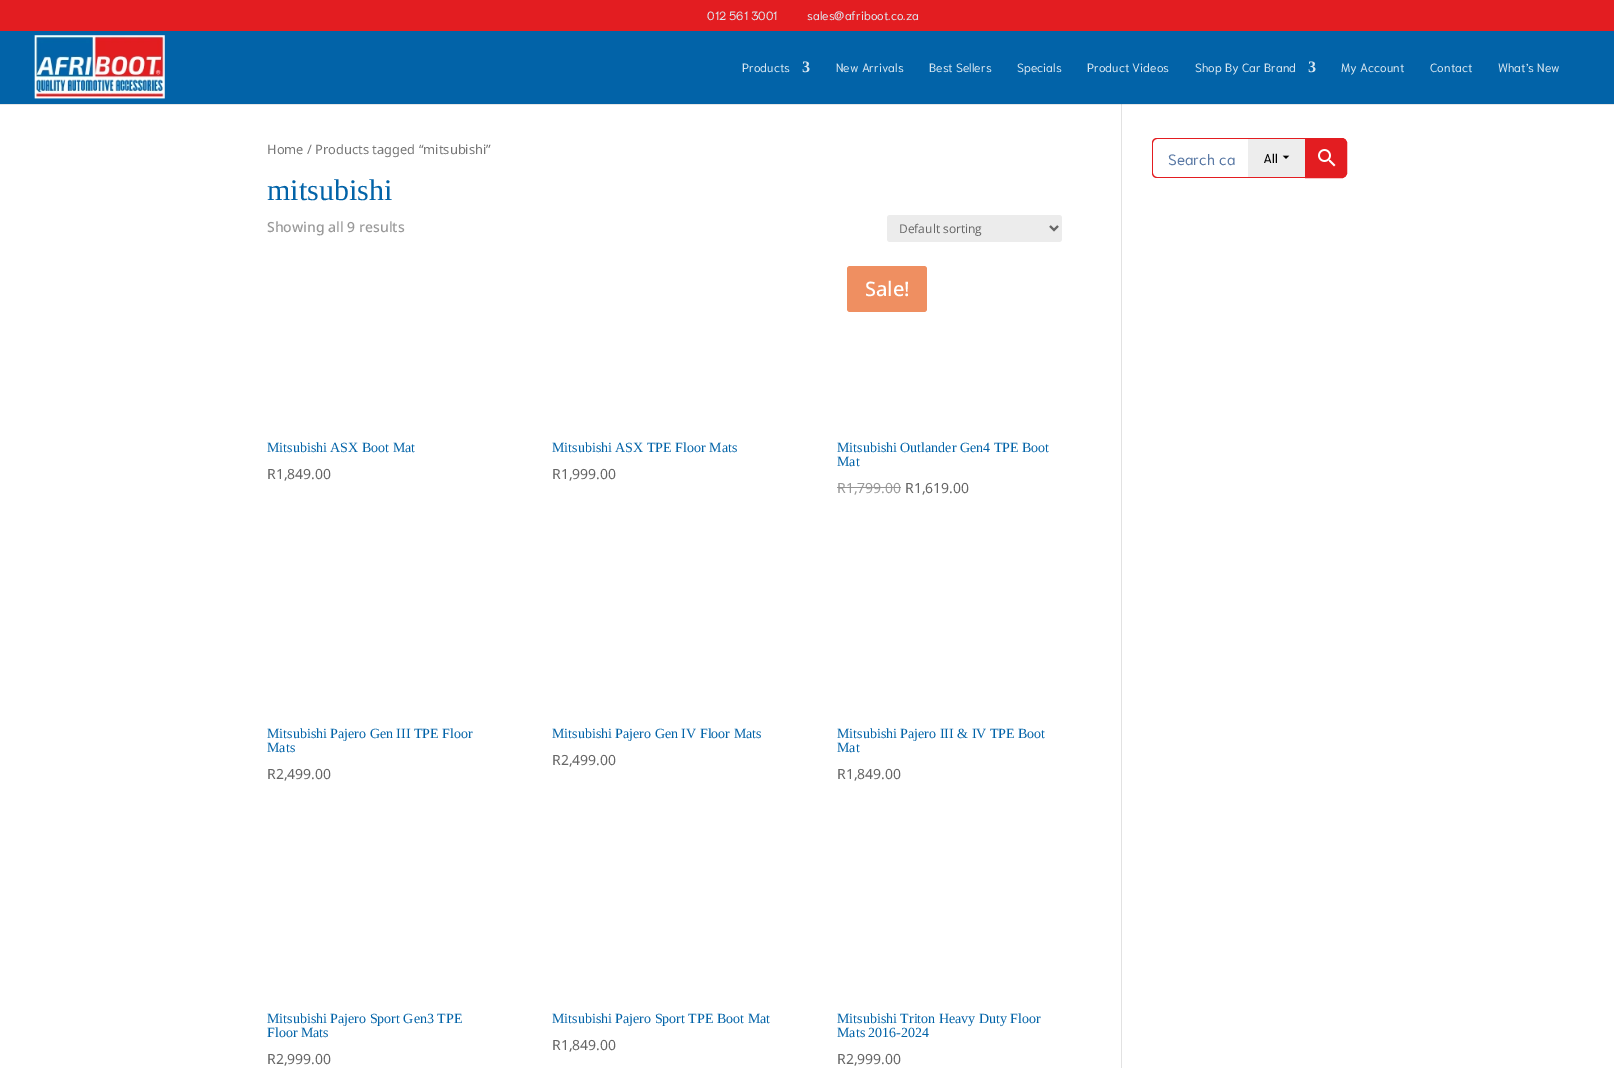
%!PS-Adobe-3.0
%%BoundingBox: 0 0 1614 1068
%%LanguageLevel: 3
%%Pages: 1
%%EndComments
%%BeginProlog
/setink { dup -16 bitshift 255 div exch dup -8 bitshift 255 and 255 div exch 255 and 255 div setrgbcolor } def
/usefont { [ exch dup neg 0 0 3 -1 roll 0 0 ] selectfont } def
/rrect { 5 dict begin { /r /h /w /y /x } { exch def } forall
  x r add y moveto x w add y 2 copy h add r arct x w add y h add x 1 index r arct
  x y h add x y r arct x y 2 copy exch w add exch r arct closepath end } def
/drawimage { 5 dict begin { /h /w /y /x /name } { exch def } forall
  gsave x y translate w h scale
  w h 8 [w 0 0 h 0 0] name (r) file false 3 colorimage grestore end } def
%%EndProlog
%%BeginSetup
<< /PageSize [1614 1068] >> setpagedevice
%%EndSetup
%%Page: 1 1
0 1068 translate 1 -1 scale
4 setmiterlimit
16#FFFFFF setink
0 0 1614 1068 rectfill
16#E6E6E6 setink
0 104 1614 1 rectfill
16#E31D21 setink
0 0 1614 31 rectfill
/Niramit-Regular 12 usefont
16#DEE7EF setink
707 20 moveto (012 561 3001) show
807 20 moveto (sales@afriboot.co.za) show
16#0263A8 setink
0 31 1614 73 rectfill
(img1.raw) 34 35 131 64 drawimage
16#D7E6F1 setink
742 72 moveto (Products) show
/LiberationSerif-Bold 16 usefont
802 72 moveto (3) show
/Niramit-Regular 12 usefont
[
    [(New Arrivals) 836 72]
    [(Best Sellers) 929 72]
    [(Specials) 1017 72]
    [(Product Videos) 1087 72]
    [(Shop By Car Brand) 1195 72]
] { aload pop moveto show } forall
/LiberationSerif-Bold 16 usefont
1308 72 moveto (3) show
/Niramit-Regular 12 usefont
[
    [(My Account) 1341 72]
    [(Contact) 1430 72]
    [(What’s New) 1498 72]
] { aload pop moveto show } forall
16#E2E2E2 setink
1121 105 1 963 rectfill
16#CBCBCB setink
1121 104 1 1 rectfill
/NotoSans-Regular 12.9 usefont
16#767676 setink
267 154 moveto (Home / Products tagged “mitsubishi”) show
/LiberationSerif-Regular 30 usefont
16#0263A8 setink
267 200 moveto (mitsubishi) show
/NotoSans-Medium 14 usefont
16#999999 setink
267 232 moveto (Showing all 9 results) show
16#ECECEC setink
887 215 175 27 3 rrect fill
16#666666 setink
2 setlinewidth
1050 226 moveto 1054 230 lineto 1058 226 lineto stroke
/OpenSans-Regular 12 usefont
899 233 moveto (Default sorting) show
/LiberationSerif-Regular 14 usefont
16#0263A8 setink
267 452 moveto (Mitsubishi ASX Boot Mat) show
/NotoSans-Regular 14 usefont
16#666666 setink
267 479 moveto (R1,849.00) show
/LiberationSerif-Regular 14 usefont
16#0263A8 setink
552 452 moveto (Mitsubishi ASX TPE Floor Mats) show
/NotoSans-Regular 14 usefont
16#666666 setink
552 479 moveto (R1,999.00) show
16#EF8F61 setink
847 266 80 46 3 rrect fill
/NotoSans-Medium 20 usefont
16#FFFFFF setink
865 296 moveto (Sale!) show
/LiberationSerif-Regular 14 usefont
16#0263A8 setink
837 452 moveto (Mitsubishi Outlander Gen4 TPE Boot) show
837 466 moveto (Mat) show
/NotoSans-Regular 14 usefont
16#999999 setink
837 493 moveto (R1,799.00) show
16#949494 setink
837 487 64 1 rectfill
16#666666 setink
905 493 moveto (R1,619.00) show
/LiberationSerif-Regular 14 usefont
16#0263A8 setink
267 738 moveto (Mitsubishi Pajero Gen III TPE Floor) show
267 752 moveto (Mats) show
/NotoSans-Regular 14 usefont
16#666666 setink
267 779 moveto (R2,499.00) show
/LiberationSerif-Regular 14 usefont
16#0263A8 setink
552 738 moveto (Mitsubishi Pajero Gen IV Floor Mats) show
/NotoSans-Regular 14 usefont
16#666666 setink
552 765 moveto (R2,499.00) show
/LiberationSerif-Regular 14 usefont
16#0263A8 setink
837 738 moveto (Mitsubishi Pajero III & IV TPE Boot) show
837 752 moveto (Mat) show
/NotoSans-Regular 14 usefont
16#666666 setink
837 779 moveto (R1,849.00) show
/LiberationSerif-Regular 14 usefont
16#0263A8 setink
267 1023 moveto (Mitsubishi Pajero Sport Gen3 TPE) show
267 1037 moveto (Floor Mats) show
/NotoSans-Regular 14 usefont
16#666666 setink
267 1064 moveto (R2,999.00) show
/LiberationSerif-Regular 14 usefont
16#0263A8 setink
552 1023 moveto (Mitsubishi Pajero Sport TPE Boot Mat) show
/NotoSans-Regular 14 usefont
16#666666 setink
552 1050 moveto (R1,849.00) show
/LiberationSerif-Regular 14 usefont
16#0263A8 setink
837 1023 moveto (Mitsubishi Triton Heavy Duty Floor) show
837 1037 moveto (Mats 2016-2024) show
/NotoSans-Regular 14 usefont
16#666666 setink
837 1064 moveto (R2,999.00) show
[
    [1248 139 57 38 16#EDEDED]
    [1248 138 58 1 16#E31D21]
    [1248 177 58 1 16#E31D21]
] { aload pop setink rectfill } forall
1157 138 moveto 1249 138 lineto 1249 178 lineto 1157 178 lineto 1154 178 1152 176 1152 173 curveto 1152 143 lineto 1152 140 1154 138 1157 138 curveto closepath 1157 139 moveto 1249 139 lineto 1249 177 lineto 1157 177 lineto 1155 177 1153 175 1153 173 curveto 1153 143 lineto 1153 141 1155 139 1157 139 curveto closepath eofill
/Niramit-Regular 15 usefont
16#5A79A5 setink
1168 165 moveto (Search ca) show
gsave
1263 153 27 10 rectclip
/Niramit-Regular 14 usefont
16#000000 setink
1263 164 moveto (All) show
grestore
(img2.raw) 1282 155 8 4 drawimage
16#E31D21 setink
1305.5 138.5 moveto 1342 138.5 lineto 1344.5 138.5 1346.5 140.5 1346.5 143 curveto 1346.5 173 lineto 1346.5 175.5 1344.5 177.5 1342 177.5 curveto 1305.5 177.5 lineto closepath gsave fill grestore
1 setlinewidth
stroke
(img3.raw) 1318 149 18 18 drawimage
showpage
%%EOF
